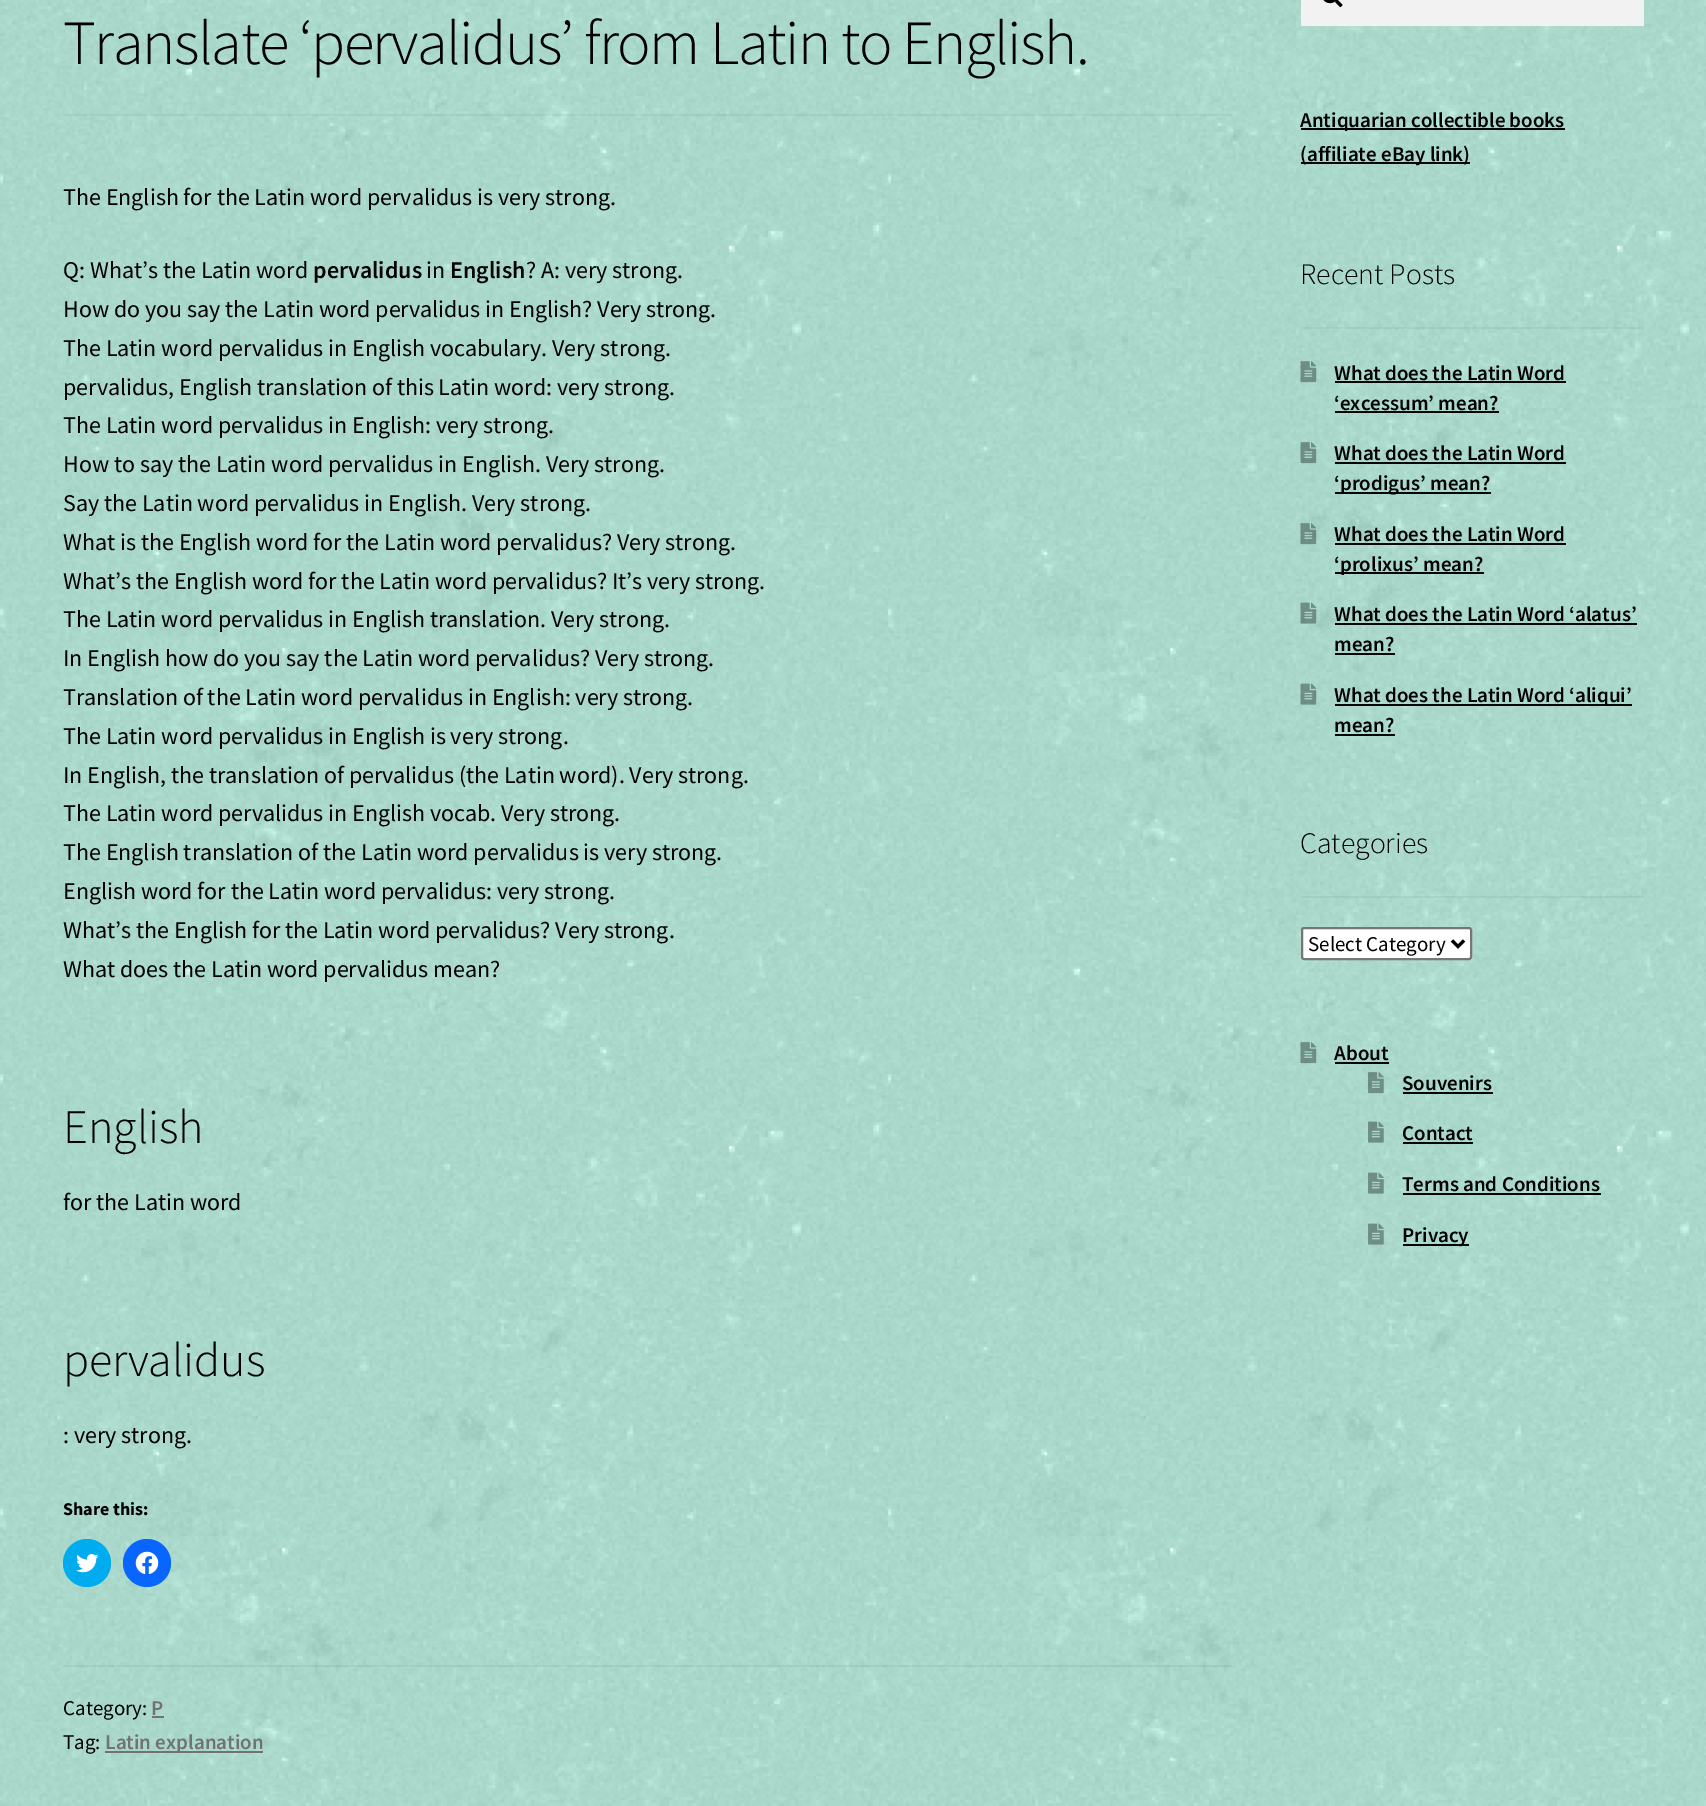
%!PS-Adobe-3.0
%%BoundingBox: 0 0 1706 1806
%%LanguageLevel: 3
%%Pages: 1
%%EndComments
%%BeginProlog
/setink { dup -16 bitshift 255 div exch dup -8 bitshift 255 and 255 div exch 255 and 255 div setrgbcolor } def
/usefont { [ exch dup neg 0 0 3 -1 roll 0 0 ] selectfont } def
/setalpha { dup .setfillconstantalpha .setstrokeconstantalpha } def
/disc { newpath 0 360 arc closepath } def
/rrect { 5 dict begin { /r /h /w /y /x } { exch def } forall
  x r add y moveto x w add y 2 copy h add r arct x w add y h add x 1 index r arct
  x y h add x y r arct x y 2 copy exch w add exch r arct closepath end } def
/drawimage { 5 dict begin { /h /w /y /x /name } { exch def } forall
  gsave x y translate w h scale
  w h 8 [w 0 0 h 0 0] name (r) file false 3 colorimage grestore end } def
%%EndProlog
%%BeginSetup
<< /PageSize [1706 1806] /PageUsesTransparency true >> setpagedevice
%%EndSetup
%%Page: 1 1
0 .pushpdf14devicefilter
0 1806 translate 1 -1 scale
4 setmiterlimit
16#FFFFFF setink
0 0 1706 1806 rectfill
(img1.raw) 0 0 1706 1806 drawimage
0.05 setalpha
16#000000 setink
63 114 1169 2 rectfill
/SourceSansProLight-Light 62.8 usefont
1 setalpha
63 64 moveto -1.5 0 (Translate ‘pervalidus’ from Latin to English.) ashow
/SourceSansPro-Regular 24 usefont
63 205 moveto (The English for the Latin word pervalidus is very strong.) show
63 278 moveto (Q: What’s the Latin word) show
/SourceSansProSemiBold-SemiBold 24 usefont
313 278 moveto (pervalidus) show
/SourceSansPro-Regular 24 usefont
426 278 moveto (in) show
/SourceSansProSemiBold-SemiBold 24 usefont
450 278 moveto (English) show
/SourceSansPro-Regular 24 usefont
[
    [(? A: very strong.) 526 278]
    [(How do you say the Latin word pervalidus in English? Very strong.) 63 317]
    [(The Latin word pervalidus in English vocabulary. Very strong.) 63 356]
    [(pervalidus, English translation of this Latin word: very strong.) 63 395]
    [(The Latin word pervalidus in English: very strong.) 63 433]
    [(How to say the Latin word pervalidus in English. Very strong.) 63 472]
    [(Say the Latin word pervalidus in English. Very strong.) 63 511]
    [(What is the English word for the Latin word pervalidus? Very strong.) 63 550]
    [(What’s the English word for the Latin word pervalidus? It’s very strong.) 63 589]
    [(The Latin word pervalidus in English translation. Very strong.) 63 627]
    [(In English how do you say the Latin word pervalidus? Very strong.) 63 666]
    [(Translation of the Latin word pervalidus in English: very strong.) 63 705]
    [(The Latin word pervalidus in English is very strong.) 63 744]
    [(In English, the translation of pervalidus \(the Latin word\). Very strong.) 63 783]
    [(The Latin word pervalidus in English vocab. Very strong.) 63 821]
    [(The English translation of the Latin word pervalidus is very strong.) 63 860]
    [(English word for the Latin word pervalidus: very strong.) 63 899]
    [(What’s the English for the Latin word pervalidus? Very strong.) 63 938]
    [(What does the Latin word pervalidus mean?) 63 977]
] { aload pop moveto show } forall
/SourceSansProLight-Light 48 usefont
63 1143 moveto (English) show
/SourceSansPro-Regular 24 usefont
63 1210 moveto (for the Latin word) show
/SourceSansProLight-Light 48 usefont
63 1376 moveto (pervalidus) show
/SourceSansPro-Regular 24 usefont
63 1443 moveto (: very strong.) show
/SourceSansPro-Bold 18 usefont
63 1515 moveto (Share this:) show
16#00ACEE setink
87 1563 24 disc fill
(img2.raw) 76 1554 23 19 drawimage
16#0866FF setink
147 1563 24 disc fill
(img3.raw) 135 1551 24 23 drawimage
0.05 setalpha
16#000000 setink
63 1665 1169 2 rectfill
/SourceSansPro-Regular 21 usefont
1 setalpha
63 1715 moveto (Category:) show
/SourceSansProSemiBold-SemiBold 21 usefont
16#727272 setink
151 1715 moveto (P) show
152 1716 12 2 rectfill
/SourceSansPro-Regular 21 usefont
16#000000 setink
63 1749 moveto (Tag:) show
16#727272 setink
105 1751 158 2 rectfill
/SourceSansProSemiBold-SemiBold 21 usefont
105 1749 moveto (Latin explanation) show
16#F2F2F2 setink
1301 0 343 26 rectfill
(img4.raw) 1323 0 20 8 drawimage
16#050505 setink
1301 128 264 2 rectfill
16#000000 setink
1300 127 moveto (Antiquarian collectible books) show
16#050505 setink
1301 162 169 2 rectfill
16#000000 setink
1300 161 moveto (\(affiliate eBay link\)) show
0.05 setalpha
1301 327 343 2 rectfill
/SourceSansProLight-Light 29.75 usefont
1 setalpha
1300 284 moveto (Recent Posts) show
(img5.raw) 1300 361 17 22 drawimage
/SourceSansProSemiBold-SemiBold 21 usefont
1334 380 moveto (What does the Latin Word) show
16#050505 setink
1335 381 231 2 rectfill
16#000000 setink
1334 410 moveto (‘excessum’ mean?) show
16#050505 setink
1335 411 164 2 rectfill
(img6.raw) 1300 442 17 22 drawimage
16#000000 setink
1334 460 moveto (What does the Latin Word) show
16#050505 setink
1335 462 231 2 rectfill
1335 492 156 2 rectfill
16#000000 setink
1334 490 moveto (‘prodigus’ mean?) show
(img7.raw) 1300 523 17 22 drawimage
1334 541 moveto (What does the Latin Word) show
16#050505 setink
1335 543 231 2 rectfill
1335 572 149 2 rectfill
16#000000 setink
1334 571 moveto (‘prolixus’ mean?) show
(img8.raw) 1300 602 17 22 drawimage
1334 621 moveto (What does the Latin Word ‘alatus’) show
16#050505 setink
1335 623 302 2 rectfill
16#000000 setink
1334 651 moveto (mean?) show
16#050505 setink
1335 653 60 2 rectfill
(img9.raw) 1300 683 17 22 drawimage
1335 704 297 2 rectfill
16#000000 setink
1334 702 moveto (What does the Latin Word ‘aliqui’) show
1334 732 moveto (mean?) show
16#050505 setink
1335 734 60 2 rectfill
0.05 setalpha
16#000000 setink
1301 896 343 2 rectfill
/SourceSansProLight-Light 29.75 usefont
1 setalpha
1300 853 moveto (Categories) show
16#FFFFFF setink
1302 928 169 31 2 rrect gsave fill grestore
16#767676 setink
2 setlinewidth
stroke
16#000000 setink
3 setlinewidth
1452 940.5 moveto 1458 946.5 lineto 1464 940.5 lineto stroke
/SourceSansPro-Regular 21 usefont
1308 951 moveto (Select Category) show
(img10.raw) 1300 1042 17 22 drawimage
/SourceSansProSemiBold-SemiBold 21 usefont
1334 1060 moveto (About) show
16#050505 setink
1335 1062 54 2 rectfill
(img11.raw) 1368 1072 16 22 drawimage
16#000000 setink
1402 1090 moveto (Souvenirs) show
16#050505 setink
1403 1092 90 2 rectfill
(img12.raw) 1368 1121 16 22 drawimage
16#000000 setink
1402 1140 moveto (Contact) show
16#050505 setink
1403 1142 70 2 rectfill
(img13.raw) 1368 1172 16 22 drawimage
16#000000 setink
1402 1191 moveto (Terms and Conditions) show
16#050505 setink
1403 1193 198 2 rectfill
(img14.raw) 1368 1223 16 22 drawimage
1403 1244 66 2 rectfill
16#000000 setink
1402 1242 moveto (Privacy) show
.poppdf14devicefilter showpage
%%EOF
